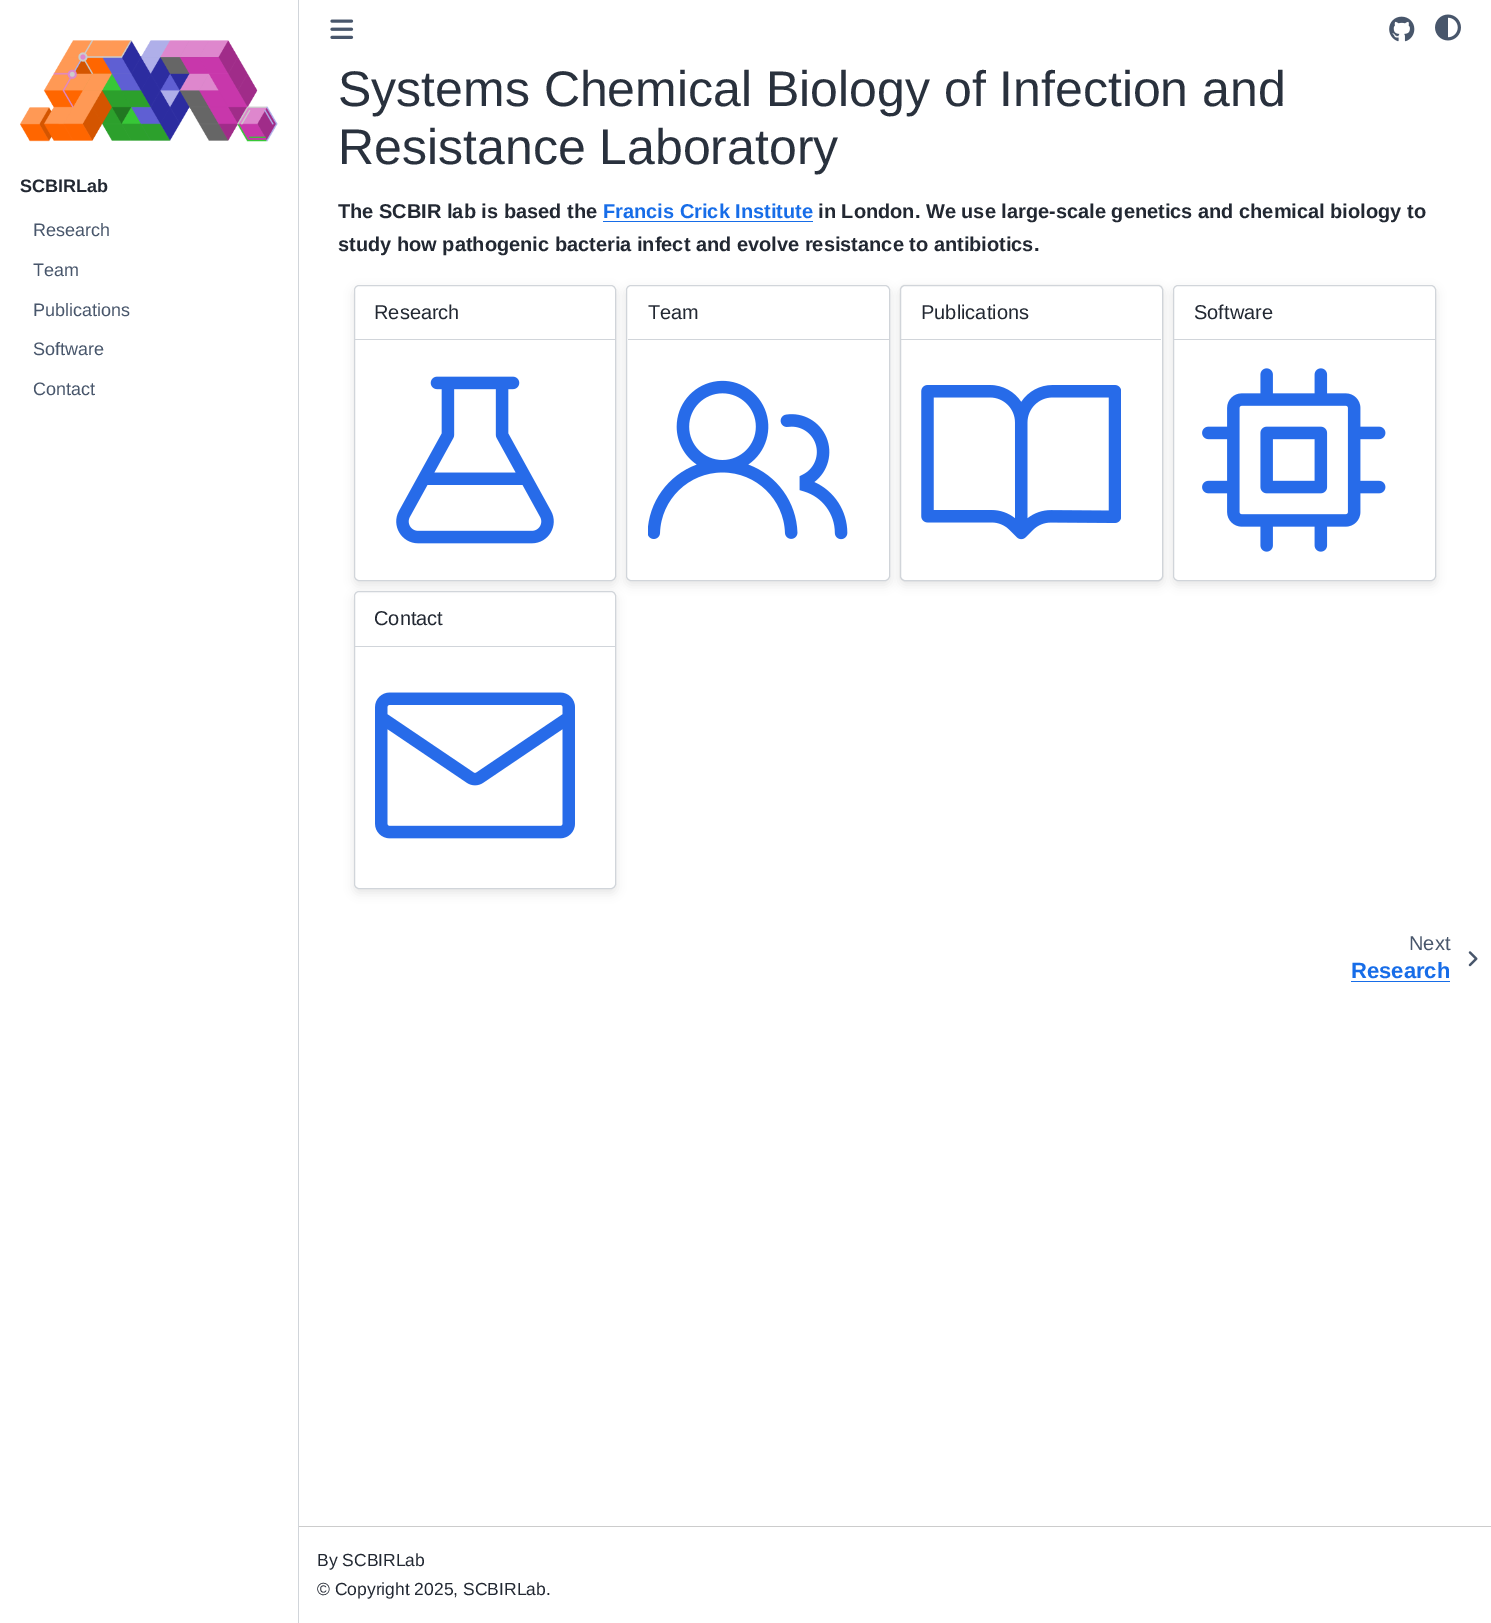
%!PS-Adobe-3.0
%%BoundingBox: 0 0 1491 1623
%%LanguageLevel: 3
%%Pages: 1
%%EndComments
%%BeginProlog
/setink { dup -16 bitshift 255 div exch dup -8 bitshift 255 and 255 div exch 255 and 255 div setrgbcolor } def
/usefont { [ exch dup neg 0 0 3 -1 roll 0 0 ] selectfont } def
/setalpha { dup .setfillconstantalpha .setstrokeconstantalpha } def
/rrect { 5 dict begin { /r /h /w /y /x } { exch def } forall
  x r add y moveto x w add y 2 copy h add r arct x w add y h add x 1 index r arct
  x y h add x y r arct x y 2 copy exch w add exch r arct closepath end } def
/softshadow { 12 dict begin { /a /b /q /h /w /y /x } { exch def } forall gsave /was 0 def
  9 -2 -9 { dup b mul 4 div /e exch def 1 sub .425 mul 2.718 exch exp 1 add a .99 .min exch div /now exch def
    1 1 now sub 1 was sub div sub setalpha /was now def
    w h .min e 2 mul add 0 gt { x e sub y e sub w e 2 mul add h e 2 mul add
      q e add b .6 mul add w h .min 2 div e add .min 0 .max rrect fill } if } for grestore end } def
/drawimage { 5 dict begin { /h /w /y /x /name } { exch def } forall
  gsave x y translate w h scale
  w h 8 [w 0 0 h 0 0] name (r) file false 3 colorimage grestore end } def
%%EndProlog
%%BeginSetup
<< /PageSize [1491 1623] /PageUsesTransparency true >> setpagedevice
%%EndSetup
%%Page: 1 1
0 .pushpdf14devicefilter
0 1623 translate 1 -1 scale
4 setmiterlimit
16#FFFFFF setink
0 0 1491 1623 rectfill
16#D1D5DA setink
298 0 1 1623 rectfill
(img1.raw) 20 40 258 102 drawimage
/LiberationSans-Bold 18 usefont
16#222832 setink
20 192 moveto (SCBIRLab) show
/LiberationSans-Regular 18 usefont
16#48566B setink
[
    [(Research) 33 236]
    [(Team) 33 276]
    [(Publications) 33 316]
    [(Software) 33 355]
    [(Contact) 33 395]
] { aload pop moveto show } forall
(img2.raw) 330 19 24 20 drawimage
(img3.raw) 1389 16 26 26 drawimage
(img4.raw) 1435 14 26 27 drawimage
/LiberationSans-Regular 50 usefont
16#29313D setink
338 106 moveto (Systems Chemical Biology of Infection and) show
338 164 moveto (Resistance Laboratory) show
/LiberationSans-Bold 20 usefont
16#222832 setink
338 218 moveto (The SCBIR lab is based the) show
16#176DE8 setink
603 218 moveto (Francis Crick Institute) show
603 221 210 1 rectfill
16#222832 setink
818 218 moveto (in London. We use large-scale genetics and chemical biology to) show
338 251 moveto (study how pathogenic bacteria infect and evolve resistance to antibiotics.) show
gsave
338 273 moveto 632 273 lineto 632 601 lineto 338 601 lineto closepath 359 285 moveto 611 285 lineto 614 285 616 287 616 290 curveto 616 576 lineto 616 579 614 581 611 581 curveto 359 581 lineto 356 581 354 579 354 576 curveto 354 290 lineto 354 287 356 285 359 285 curveto closepath eoclip newpath
16#000000 setink
354 289 262 296 5 5 0.1 softshadow
grestore
16#D1D5DA setink
354.5 285.5 261 295 4.5 rrect stroke
355 339 260 1 rectfill
/LiberationSans-Regular 20 usefont
16#222832 setink
374 319 moveto (Research) show
(img5.raw) 396 376 158 168 drawimage
gsave
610 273 moveto 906 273 lineto 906 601 lineto 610 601 lineto closepath 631 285 moveto 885 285 lineto 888 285 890 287 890 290 curveto 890 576 lineto 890 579 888 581 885 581 curveto 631 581 lineto 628 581 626 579 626 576 curveto 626 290 lineto 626 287 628 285 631 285 curveto closepath eoclip newpath
16#000000 setink
626 289 264 296 5 5 0.1 softshadow
grestore
16#D1D5DA setink
626.5 285.5 263 295 4.5 rrect stroke
628 339 261 1 rectfill
16#222832 setink
648 319 moveto (Team) show
(img6.raw) 648 380 200 160 drawimage
gsave
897 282 moveto 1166 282 lineto 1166 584 lineto 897 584 lineto closepath 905 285 moveto 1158 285 lineto 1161 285 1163 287 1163 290 curveto 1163 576 lineto 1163 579 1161 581 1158 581 curveto 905 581 lineto 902 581 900 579 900 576 curveto 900 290 lineto 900 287 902 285 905 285 curveto closepath eoclip newpath
16#000000 setink
900 285 263 296 5 0.5 0.1 softshadow
grestore
gsave
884 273 moveto 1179 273 lineto 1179 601 lineto 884 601 lineto closepath 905 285 moveto 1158 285 lineto 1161 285 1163 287 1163 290 curveto 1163 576 lineto 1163 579 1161 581 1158 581 curveto 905 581 lineto 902 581 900 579 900 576 curveto 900 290 lineto 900 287 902 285 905 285 curveto closepath eoclip newpath
16#000000 setink
900 289 263 296 5 5 0.1 softshadow
grestore
16#D1D5DA setink
900.5 285.5 262 295 4.5 rrect stroke
901 339 260 1 rectfill
16#222832 setink
921 319 moveto (Publications) show
(img7.raw) 921 385 200 155 drawimage
gsave
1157 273 moveto 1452 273 lineto 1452 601 lineto 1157 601 lineto closepath 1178 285 moveto 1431 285 lineto 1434 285 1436 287 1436 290 curveto 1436 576 lineto 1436 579 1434 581 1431 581 curveto 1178 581 lineto 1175 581 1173 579 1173 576 curveto 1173 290 lineto 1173 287 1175 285 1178 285 curveto closepath eoclip newpath
16#000000 setink
1173 289 263 296 5 5 0.1 softshadow
grestore
16#D1D5DA setink
1173.5 285.5 262 295 4.5 rrect stroke
1174 339 261 1 rectfill
16#222832 setink
1194 319 moveto (Software) show
(img8.raw) 1202 368 184 184 drawimage
gsave
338 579 moveto 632 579 lineto 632 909 lineto 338 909 lineto closepath 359 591 moveto 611 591 lineto 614 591 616 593 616 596 curveto 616 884 lineto 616 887 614 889 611 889 curveto 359 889 lineto 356 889 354 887 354 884 curveto 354 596 lineto 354 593 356 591 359 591 curveto closepath eoclip newpath
16#000000 setink
354 595 262 298 5 5 0.1 softshadow
grestore
16#D1D5DA setink
354.5 591.5 261 297 4.5 rrect stroke
355 646 260 1 rectfill
16#222832 setink
374 625 moveto (Contact) show
(img9.raw) 375 692 200 147 drawimage
16#48566B setink
1409 950 moveto (Next) show
/LiberationSans-Bold 22 usefont
16#176DE8 setink
1351 978 moveto (Research) show
1351 981 99 1 rectfill
(img10.raw) 1468 951 10 16 drawimage
16#CCCCCC setink
299 1526 1192 1 rectfill
/LiberationSans-Regular 17.5 usefont
16#222832 setink
317 1566 moveto (By SCBIRLab) show
317 1595 moveto (© Copyright 2025, SCBIRLab.) show
.poppdf14devicefilter showpage
%%EOF
